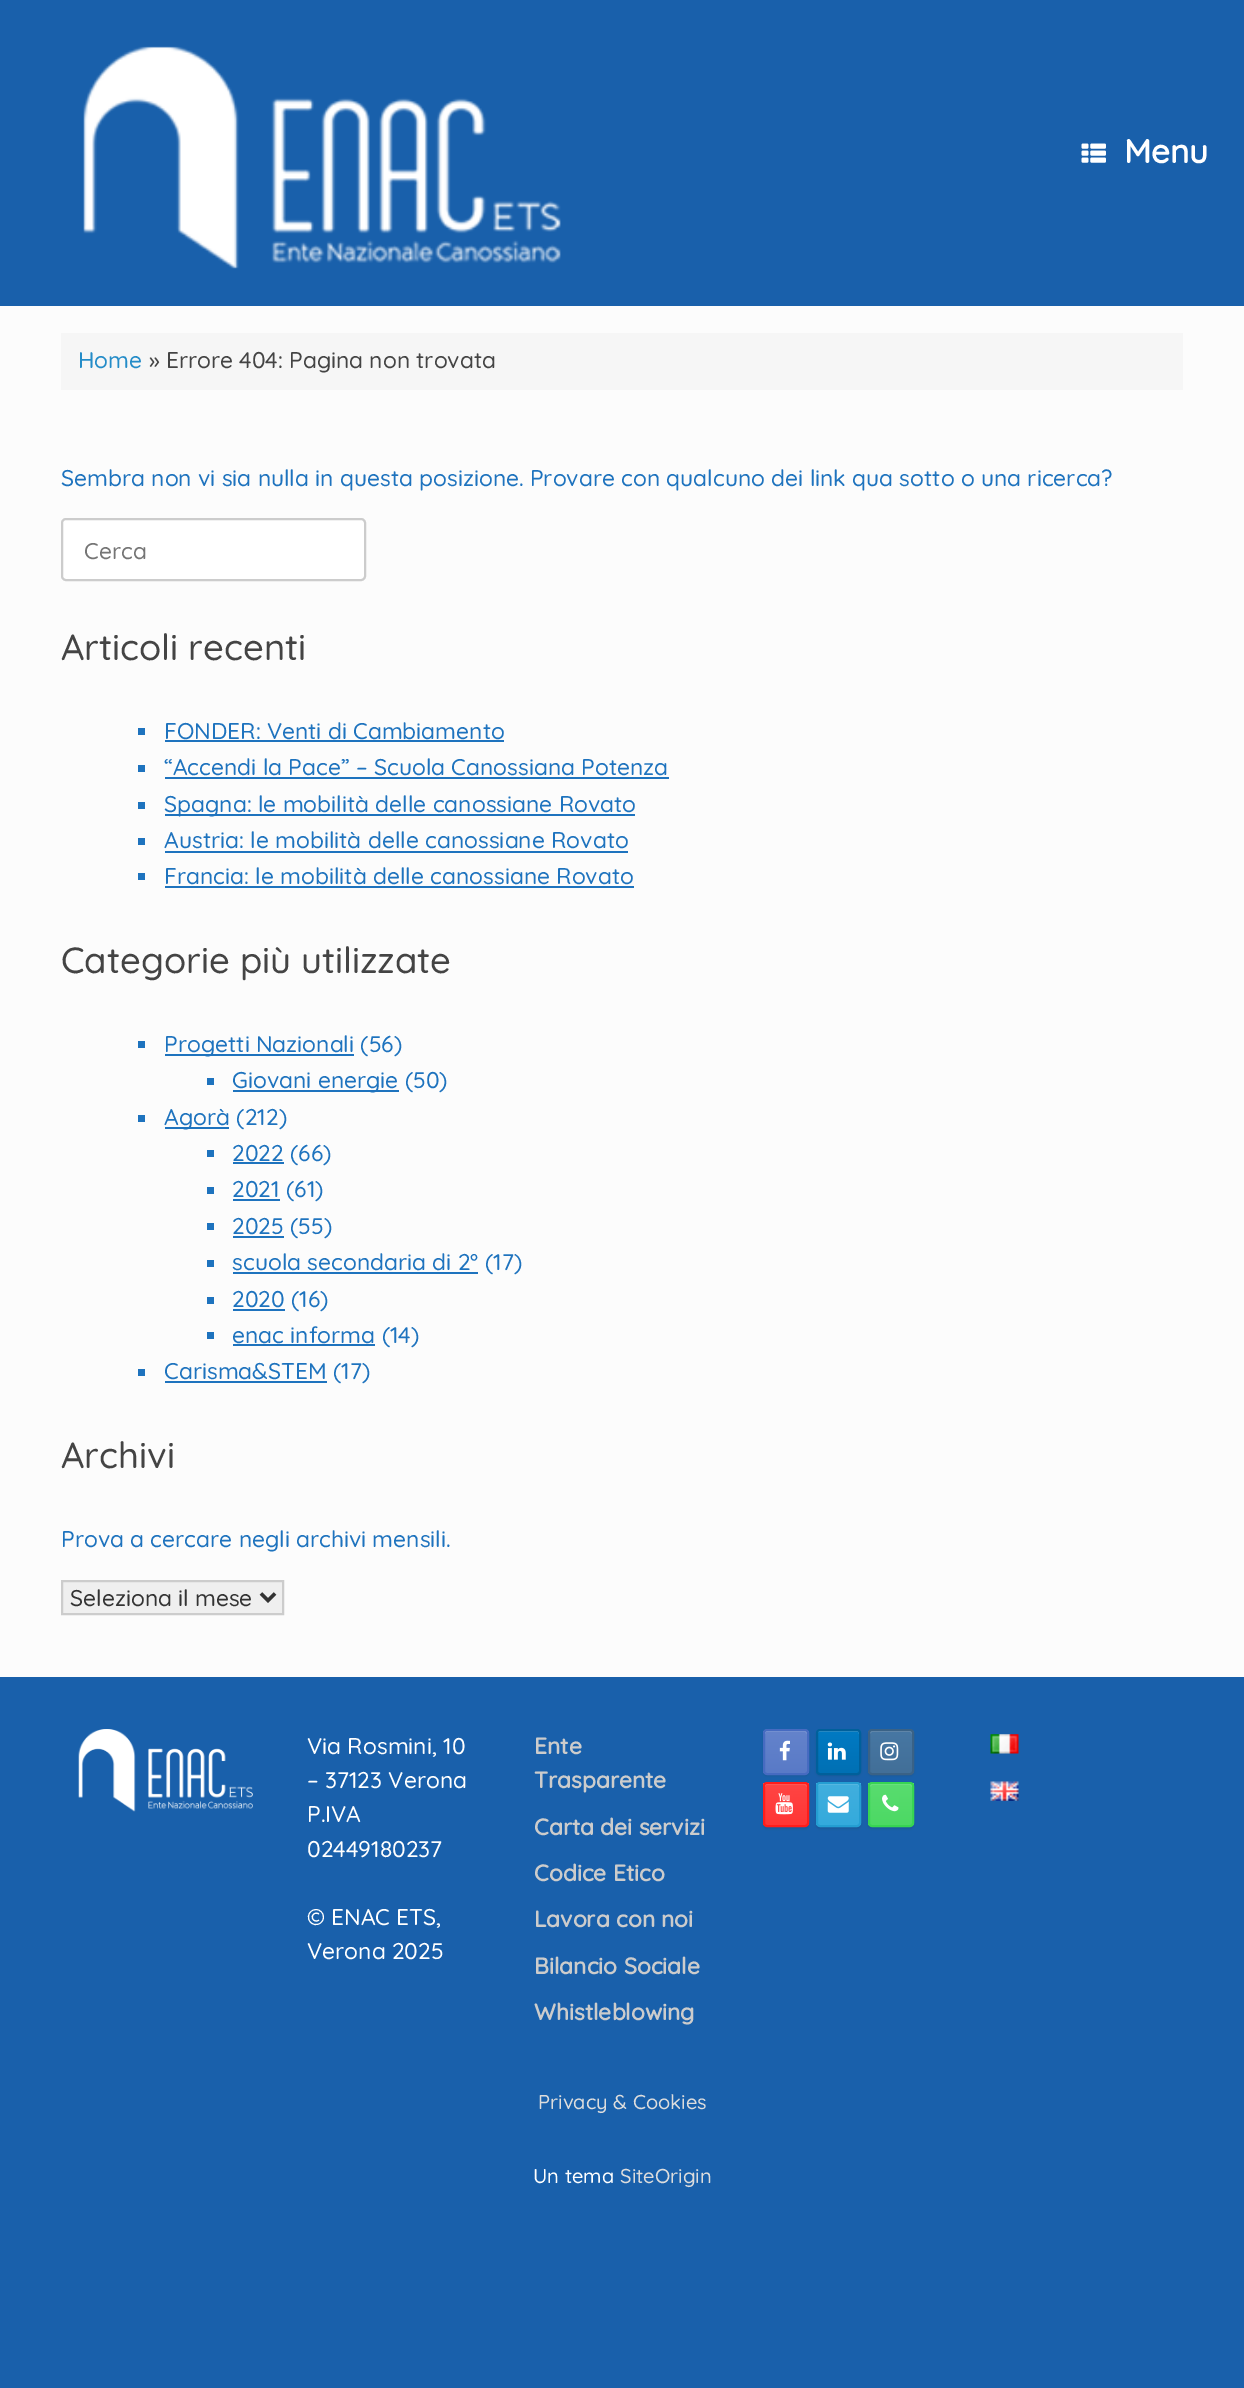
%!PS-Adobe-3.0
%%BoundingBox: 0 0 1244 2388
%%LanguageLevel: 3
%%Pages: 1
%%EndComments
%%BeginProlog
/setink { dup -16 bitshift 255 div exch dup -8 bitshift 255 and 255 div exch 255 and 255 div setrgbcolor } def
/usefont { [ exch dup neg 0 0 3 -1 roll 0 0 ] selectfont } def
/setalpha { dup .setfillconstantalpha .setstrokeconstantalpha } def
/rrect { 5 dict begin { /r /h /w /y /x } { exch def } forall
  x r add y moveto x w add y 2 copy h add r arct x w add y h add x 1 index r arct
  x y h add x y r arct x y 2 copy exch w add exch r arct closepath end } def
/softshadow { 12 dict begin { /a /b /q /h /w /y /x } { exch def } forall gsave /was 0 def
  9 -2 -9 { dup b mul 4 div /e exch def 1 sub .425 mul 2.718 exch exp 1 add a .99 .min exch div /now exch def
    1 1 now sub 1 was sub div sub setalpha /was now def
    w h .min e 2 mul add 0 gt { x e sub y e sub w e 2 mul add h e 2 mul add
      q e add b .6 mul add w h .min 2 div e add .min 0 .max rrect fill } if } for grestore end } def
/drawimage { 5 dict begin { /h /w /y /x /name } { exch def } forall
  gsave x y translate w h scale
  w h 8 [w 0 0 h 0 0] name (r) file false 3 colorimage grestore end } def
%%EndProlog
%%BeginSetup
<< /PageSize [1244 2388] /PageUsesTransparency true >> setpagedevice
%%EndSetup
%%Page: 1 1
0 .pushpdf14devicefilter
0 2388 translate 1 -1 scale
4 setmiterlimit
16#1960AB setink
0 0 1244 2388 rectfill
(img1.raw) 83 46 478 223 drawimage
(img2.raw) 1081 143 25 20 drawimage
/Quicksand-Bold 33 usefont
16#FFFFFF setink
1124 163 moveto (Menu) show
16#FCFCFC setink
0 306 1244 1371 rectfill
16#F6F6F6 setink
61 333 1122 57 rectfill
/Quicksand-Light 22.75 usefont
16#248CC8 setink
78 368 moveto (Home) show
16#444444 setink
149 368 moveto (» Errore 404: Pagina non trovata) show
16#1E73BE setink
61 486 moveto (Sembra non vi sia nulla in questa posizione. Provare con qualcuno dei link qua sotto o una ricerca?) show
16#FFFFFF setink
62 519 303 61 4 rrect gsave fill grestore
16#CCCCCC setink
2 setlinewidth
stroke
16#757575 setink
84 559 moveto (Cerca) show
/Quicksand-Light 36.4 usefont
16#444444 setink
61 660 moveto (Articoli recenti) show
16#1E73BE setink
138 728 7 7 rectfill
/Quicksand-Light 22.75 usefont
164 739 moveto (FONDER: Venti di Cambiamento) show
165 740 339 2 rectfill
138 765 7 7 rectfill
164 775 moveto (“Accendi la Pace” – Scuola Canossiana Potenza) show
[
    [165 777 504 2 16#1E73BE]
    [138 802 7 7 16#1E73BE]
    [165 814 470 2 16#1E73BE]
] { aload pop setink rectfill } forall
164 812 moveto (Spagna: le mobilità delle canossiane Rovato) show
138 838 7 7 rectfill
164 848 moveto (Austria: le mobilità delle canossiane Rovato) show
165 851 463 2 rectfill
138 873 7 7 rectfill
164 884 moveto (Francia: le mobilità delle canossiane Rovato) show
165 886 469 2 rectfill
/Quicksand-Light 36.4 usefont
16#444444 setink
61 973 moveto (Categorie più utilizzate) show
16#1E73BE setink
138 1041 7 7 rectfill
165 1054 189 2 rectfill
/Quicksand-Light 22.75 usefont
164 1052 moveto (Progetti Nazionali \(56\)) show
207 1078 7 7 rectfill
233 1090 166 2 rectfill
232 1088 moveto (Giovani energie \(50\)) show
138 1115 7 7 rectfill
165 1127 64 2 rectfill
164 1125 moveto (Agorà \(212\)) show
207 1150 7 7 rectfill
233 1162 51 2 rectfill
232 1161 moveto (2022 \(66\)) show
207 1187 7 7 rectfill
233 1199 47 2 rectfill
232 1197 moveto (2021 \(61\)) show
207 1223 7 7 rectfill
233 1236 51 2 rectfill
232 1234 moveto (2025 \(55\)) show
207 1260 7 7 rectfill
233 1272 245 2 rectfill
232 1270 moveto (scuola secondaria di 2° \(17\)) show
207 1297 7 7 rectfill
233 1309 52 2 rectfill
232 1307 moveto (2020 \(16\)) show
207 1332 7 7 rectfill
233 1344 142 2 rectfill
232 1343 moveto (enac informa \(14\)) show
138 1369 7 7 rectfill
165 1381 162 2 rectfill
164 1379 moveto (Carisma&STEM \(17\)) show
/Quicksand-Light 36.4 usefont
16#444444 setink
61 1468 moveto (Archivi) show
/Quicksand-Light 22.75 usefont
16#1E73BE setink
61 1547 moveto (Prova a cercare negli archivi mensili.) show
16#EFEFEF setink
62 1581 moveto 283 1581 lineto 283 1614 lineto 62 1614 lineto closepath gsave fill grestore
16#CCCCCC setink
stroke
16#333333 setink
3.5 setlinewidth
261 1593.5 moveto 268 1600.5 lineto 275 1593.5 lineto stroke
70 1606 moveto (Seleziona il mese) show
(img3.raw) 78 1729 175 83 drawimage
16#FFFFFF setink
[
    [(Via Rosmini, 10) 307 1754]
    [(– 37123 Verona) 307 1788]
    [(P.IVA) 307 1822]
    [(02449180237) 307 1857]
    [(© ENAC ETS,) 307 1925]
    [(Verona 2025) 307 1959]
] { aload pop moveto show } forall
/Quicksand-Bold 22.75 usefont
16#CCCCCC setink
[
    [(Ente) 534 1754]
    [(Trasparente) 534 1788]
    [(Carta dei servizi) 534 1835]
    [(Codice Etico) 534 1881]
    [(Lavora con noi) 534 1927]
    [(Bilancio Sociale) 534 1974]
    [(Whistleblowing) 534 2020]
] { aload pop moveto show } forall
16#000000 setink
763 1731 46 45 4 1 0.1 softshadow
gsave
763 1729 46 46 4 rrect clip newpath
gsave 763 1731 moveto 809 1731 lineto 809 1773 lineto 763 1773 lineto closepath clip newpath
<< /ShadingType 2 /ColorSpace /DeviceRGB /Coords [786 1773 786 1731] /Extend [true true] /Function << /FunctionType 2 /Domain [0 1] /C0 [0.349 0.478 0.78] /C1 [0.392 0.514 0.796] /N 1 >> >> shfill grestore
grestore
16#839CD5 setink
766 1732 moveto 805 1732 lineto 806 1732 807 1733 807 1734 curveto 807 1729 802 1731 799 1731 curveto 773 1731 lineto 770 1731 765 1729 765 1734 curveto closepath fill
16#466BC1 setink
2 setlinewidth
764 1730 44 44 3 rrect stroke
(img4.raw) 779 1740 11 21 drawimage
16#000000 setink
816 1731 45 45 4 1 0.1 softshadow
gsave
816 1729 45 46 4 rrect clip newpath
gsave 816 1731 moveto 861 1731 lineto 861 1773 lineto 816 1773 lineto closepath clip newpath
<< /ShadingType 2 /ColorSpace /DeviceRGB /Coords [838 1773 838 1731] /Extend [true true] /Function << /FunctionType 2 /Domain [0 1] /C0 [0 0.439 0.706] /C1 [0 0.478 0.765] /N 1 >> >> shfill grestore
grestore
16#3395CF setink
819 1732 moveto 858 1732 lineto 859 1734 lineto 859 1729 854 1731 851 1731 curveto 825 1731 lineto 822 1731 817 1729 817 1734 curveto 817 1733 818 1732 819 1732 curveto closepath fill
16#00609B setink
817 1730 43 44 3 rrect stroke
(img5.raw) 827 1742 19 18 drawimage
16#000000 setink
868 1731 46 45 4 1 0.1 softshadow
gsave
868 1729 46 46 4 rrect clip newpath
gsave 868 1731 moveto 914 1731 lineto 914 1773 lineto 868 1773 lineto closepath clip newpath
<< /ShadingType 2 /ColorSpace /DeviceRGB /Coords [891 1773 891 1731] /Extend [true true] /Function << /FunctionType 2 /Domain [0 1] /C0 [0.259 0.435 0.596] /C1 [0.278 0.467 0.639] /N 1 >> >> shfill grestore
grestore
16#6C92B5 setink
872 1732 moveto 910 1732 lineto 911 1732 912 1733 912 1734 curveto 912 1729 907 1731 904 1731 curveto 878 1731 lineto 875 1731 870 1729 870 1734 curveto 870 1733 871 1732 872 1732 curveto closepath fill
16#3A6286 setink
869 1730 44 44 3 rrect stroke
(img6.raw) 880 1742 19 19 drawimage
16#000000 setink
763 1783 46 46 4 1 0.1 softshadow
gsave
763 1782 46 45 4 rrect clip newpath
gsave 763 1783 moveto 809 1783 lineto 809 1825 lineto 763 1825 lineto closepath clip newpath
<< /ShadingType 2 /ColorSpace /DeviceRGB /Coords [786 1825 786 1783] /Extend [true true] /Function << /FunctionType 2 /Domain [0 1] /C0 [1 0.212 0.208] /C1 [1 0.271 0.267] /N 1 >> >> shfill grestore
grestore
16#FF6A69 setink
766 1785 moveto 805 1785 lineto 806 1785 807 1786 807 1787 curveto 807 1781 805 1783 799 1783 curveto 773 1783 lineto 767 1783 765 1781 765 1787 curveto closepath fill
16#FF1D1B setink
764 1783 44 43 3 rrect stroke
(img7.raw) 775 1793 18 22 drawimage
16#000000 setink
816 1783 45 46 4 1 0.1 softshadow
gsave
816 1782 45 45 4 rrect clip newpath
gsave 816 1783 moveto 861 1783 lineto 861 1825 lineto 816 1825 lineto closepath clip newpath
<< /ShadingType 2 /ColorSpace /DeviceRGB /Coords [838 1825 838 1783] /Extend [true true] /Function << /FunctionType 2 /Domain [0 1] /C0 [0.204 0.667 0.863] /C1 [0.255 0.686 0.871] /N 1 >> >> shfill grestore
grestore
16#67BFE5 setink
819 1785 moveto 858 1785 lineto 859 1787 lineto 859 1781 857 1783 851 1783 curveto 825 1783 lineto 819 1783 817 1781 817 1787 curveto 817 1786 818 1785 819 1785 curveto closepath fill
16#249ED2 setink
817 1783 43 43 3 rrect stroke
(img8.raw) 827 1796 22 17 drawimage
16#000000 setink
868 1783 46 46 4 1 0.1 softshadow
gsave
868 1782 46 45 4 rrect clip newpath
gsave 868 1783 moveto 914 1783 lineto 914 1825 lineto 868 1825 lineto closepath clip newpath
<< /ShadingType 2 /ColorSpace /DeviceRGB /Coords [891 1825 891 1783] /Extend [true true] /Function << /FunctionType 2 /Domain [0 1] /C0 [0.298 0.851 0.392] /C1 [0.349 0.863 0.435] /N 1 >> >> shfill grestore
grestore
16#7AE38C setink
872 1785 moveto 910 1785 lineto 911 1785 912 1786 912 1787 curveto 912 1781 910 1783 904 1783 curveto 878 1783 lineto 872 1783 870 1781 870 1787 curveto 870 1786 871 1785 872 1785 curveto closepath fill
16#37D552 setink
869 1783 44 43 3 rrect stroke
(img9.raw) 882 1794 17 18 drawimage
(img10.raw) 990 1734 29 20 drawimage
(img11.raw) 990 1781 29 20 drawimage
/Quicksand-Light 20.1 usefont
16#DDDDDD setink
538 2109 moveto (Privacy & Cookies) show
16#FFFFFF setink
533 2183 moveto (Un tema) show
16#DDDDDD setink
620 2183 moveto (SiteOrigin) show
.poppdf14devicefilter showpage
%%EOF
